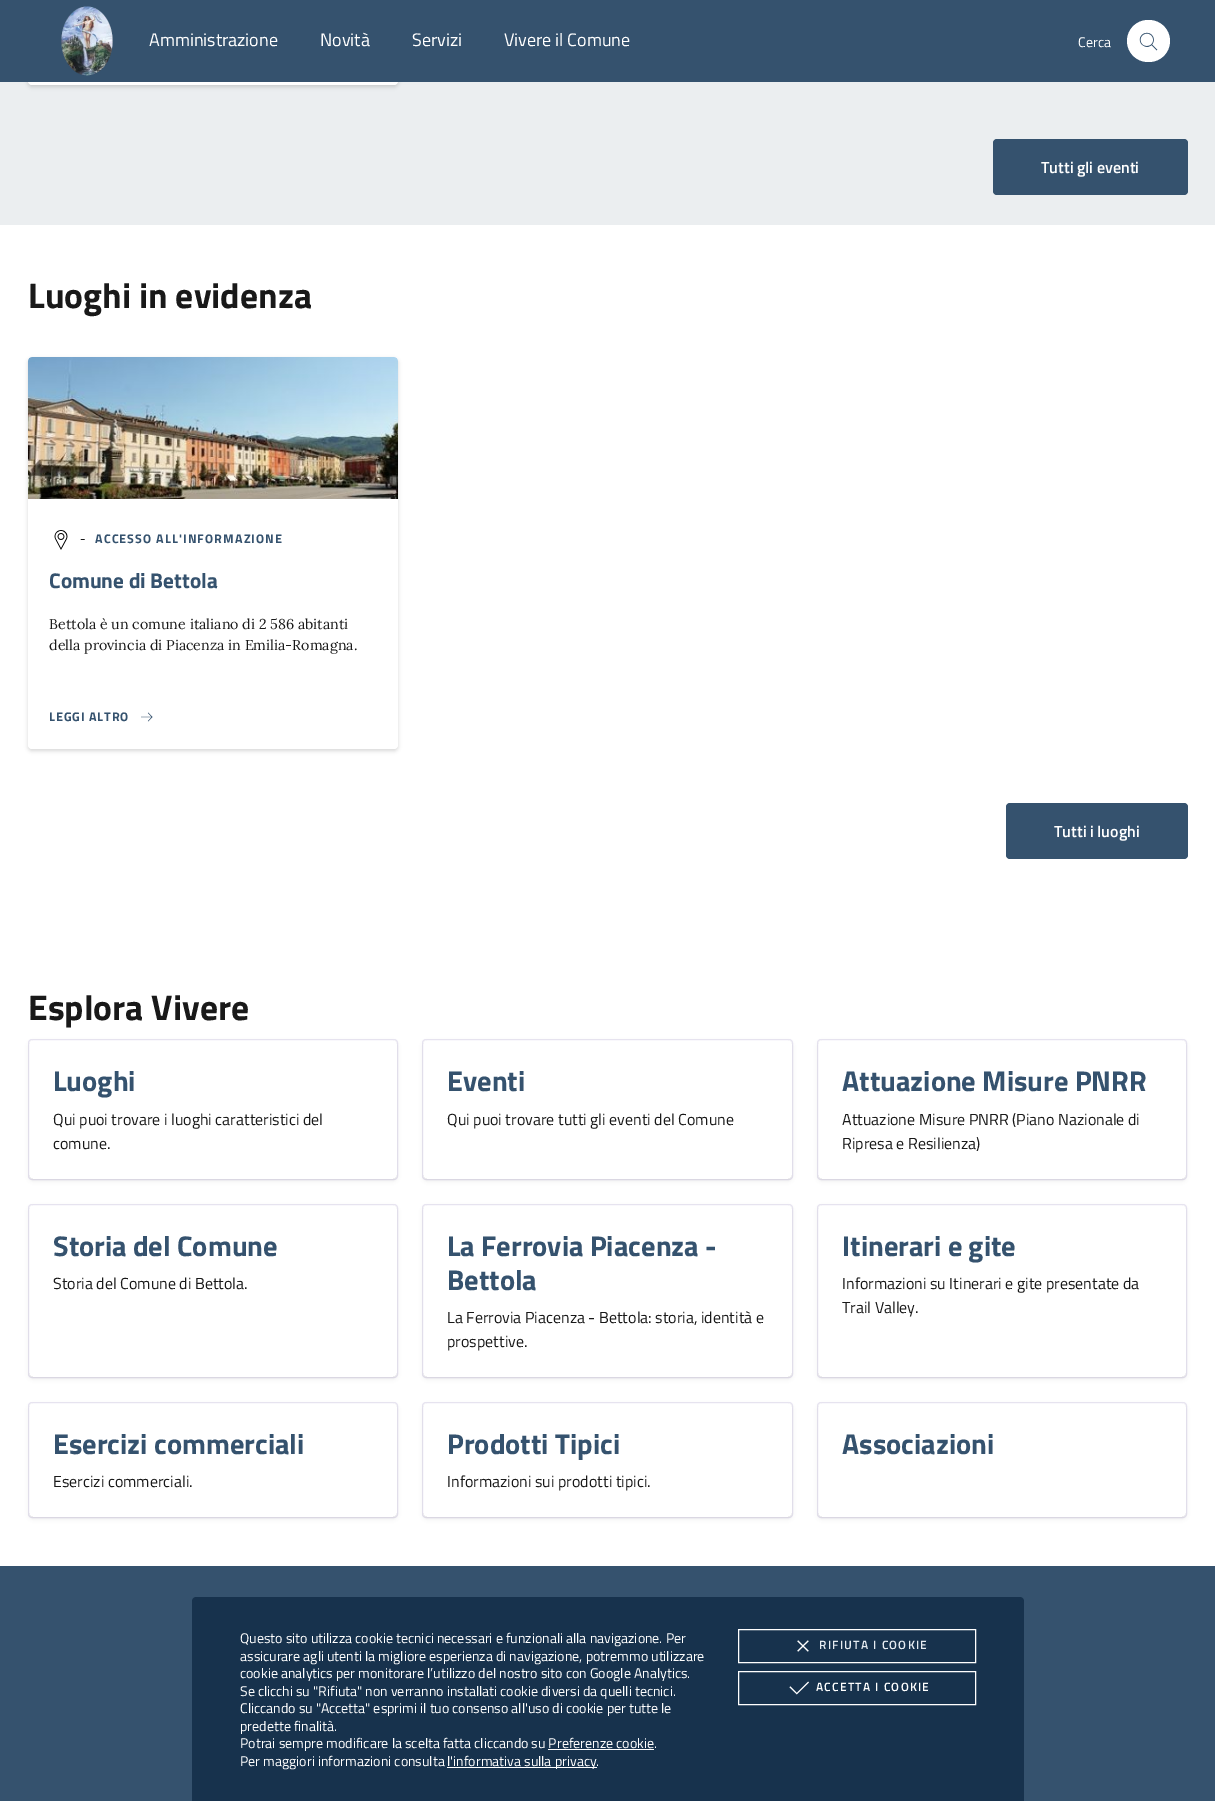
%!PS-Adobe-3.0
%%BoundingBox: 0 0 1215 1801
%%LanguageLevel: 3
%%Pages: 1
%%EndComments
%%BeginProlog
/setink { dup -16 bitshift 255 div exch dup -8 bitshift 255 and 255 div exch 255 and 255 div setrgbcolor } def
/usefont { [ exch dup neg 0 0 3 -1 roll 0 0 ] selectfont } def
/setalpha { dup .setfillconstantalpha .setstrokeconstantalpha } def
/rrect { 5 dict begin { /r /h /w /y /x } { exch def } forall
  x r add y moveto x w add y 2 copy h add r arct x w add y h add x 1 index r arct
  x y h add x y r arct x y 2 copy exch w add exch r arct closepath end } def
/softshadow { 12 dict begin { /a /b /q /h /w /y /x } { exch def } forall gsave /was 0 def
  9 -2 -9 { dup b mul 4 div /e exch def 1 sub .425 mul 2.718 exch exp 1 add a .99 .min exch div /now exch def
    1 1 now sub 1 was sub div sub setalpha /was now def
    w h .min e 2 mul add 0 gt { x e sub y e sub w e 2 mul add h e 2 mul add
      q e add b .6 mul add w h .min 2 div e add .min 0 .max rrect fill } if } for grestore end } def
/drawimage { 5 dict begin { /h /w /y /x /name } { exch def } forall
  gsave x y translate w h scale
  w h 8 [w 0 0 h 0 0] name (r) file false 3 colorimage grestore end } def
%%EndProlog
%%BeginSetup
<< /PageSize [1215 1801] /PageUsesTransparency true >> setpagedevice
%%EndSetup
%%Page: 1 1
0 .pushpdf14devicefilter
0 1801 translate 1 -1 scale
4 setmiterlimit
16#FFFFFF setink
0 0 1215 1801 rectfill
16#EBEEF0 setink
0 82 1215 143 rectfill
16#000000 setink
28 -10 370 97 4 2 0.15 softshadow
16#FFFFFF setink
28 -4 370 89 4 rrect fill
16#35526E setink
0 0 1215 82 rectfill
(img1.raw) 61 6 52 70 drawimage
/TitilliumWeb-Regular 18 usefont
16#FFFFFF setink
[
    [(Amministrazione) 149 46]
    [(Novità) 320 46]
    [(Servizi) 412 46]
    [(Vivere il Comune) 504 46]
] { aload pop moveto show } forall
/TitilliumWeb-Regular 14 usefont
1078 47 moveto (Cerca) show
1127 20 43 42 21 rrect fill
(img2.raw) 1139 32 19 19 drawimage
16#35526E setink
993 139 195 56 4 rrect fill
/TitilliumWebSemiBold-SemiBold 16 usefont
16#FFFFFF setink
1041 173 moveto (Tutti gli eventi) show
/TitilliumWeb-Bold 35.5 usefont
16#191919 setink
28 308 moveto (Luoghi in evidenza) show
16#000000 setink
28 359 370 392 4 2 0.15 softshadow
16#FFFFFF setink
28 357 370 392 4 rrect fill
(img3.raw) 28 357 370 142 drawimage
(img4.raw) 54 530 14 20 drawimage
/TitilliumWeb-Regular 12.5 usefont
16#191919 setink
80 543 moveto 1.1 0 (-) ashow
/TitilliumWeb-Bold 12.5 usefont
16#35526E setink
95 543 moveto 1.1 0 (ACCESSO ALL'INFORMAZIONE) ashow
/TitilliumWeb-Bold 21.25 usefont
49 588 moveto (Comune di Bettola) show
/Lora-Regular 14.25 usefont
16#191919 setink
49 629 moveto (Bettola è un comune italiano di 2 586 abitanti) show
49 650 moveto (della provincia di Piacenza in Emilia-Romagna.) show
/TitilliumWeb-Bold 12.5 usefont
16#35526E setink
49 721 moveto 0.9 0 (LEGGI ALTRO) ashow
(img5.raw) 141 712 12 10 drawimage
1006 803 182 56 4 rrect fill
/TitilliumWebSemiBold-SemiBold 16 usefont
16#FFFFFF setink
1054 837 moveto (Tutti i luoghi) show
/TitilliumWeb-Bold 35.5 usefont
16#191919 setink
28 1020 moveto (Esplora Vivere) show
16#E9E6F2 setink
28.5 1039.5 369 140 3.5 rrect stroke
gsave
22 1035 moveto 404 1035 lineto 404 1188 lineto 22 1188 lineto closepath 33 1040 moveto 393 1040 lineto 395 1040 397 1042 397 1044 curveto 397 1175 lineto 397 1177 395 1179 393 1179 curveto 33 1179 lineto 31 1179 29 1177 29 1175 curveto 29 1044 lineto 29 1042 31 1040 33 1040 curveto closepath eoclip newpath
16#000000 setink
29 1042 368 139 4 2 0.07 softshadow
grestore
/TitilliumWeb-Bold 28.5 usefont
16#35526E setink
53 1091 moveto (Luoghi) show
/TitilliumWeb-Regular 16 usefont
16#191919 setink
53 1125 moveto (Qui puoi trovare i luoghi caratteristici del) show
53 1149 moveto (comune.) show
16#E9E6F2 setink
422.5 1039.5 370 140 3.5 rrect stroke
gsave
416 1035 moveto 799 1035 lineto 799 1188 lineto 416 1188 lineto closepath 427 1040 moveto 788 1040 lineto 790 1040 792 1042 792 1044 curveto 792 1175 lineto 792 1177 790 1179 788 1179 curveto 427 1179 lineto 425 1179 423 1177 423 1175 curveto 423 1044 lineto 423 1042 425 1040 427 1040 curveto closepath eoclip newpath
16#000000 setink
423 1042 369 139 4 2 0.07 softshadow
grestore
/TitilliumWeb-Bold 28.5 usefont
16#35526E setink
447 1091 moveto (Eventi) show
/TitilliumWeb-Regular 16 usefont
16#191919 setink
447 1125 moveto (Qui puoi trovare tutti gli eventi del Comune) show
16#E9E6F2 setink
817.5 1039.5 369 140 3.5 rrect stroke
gsave
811 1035 moveto 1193 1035 lineto 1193 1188 lineto 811 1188 lineto closepath 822 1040 moveto 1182 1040 lineto 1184 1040 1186 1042 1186 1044 curveto 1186 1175 lineto 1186 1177 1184 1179 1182 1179 curveto 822 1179 lineto 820 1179 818 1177 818 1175 curveto 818 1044 lineto 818 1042 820 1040 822 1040 curveto closepath eoclip newpath
16#000000 setink
818 1042 368 139 4 2 0.07 softshadow
grestore
/TitilliumWeb-Bold 28.5 usefont
16#35526E setink
842 1091 moveto (Attuazione Misure PNRR) show
/TitilliumWeb-Regular 16 usefont
16#191919 setink
842 1125 moveto (Attuazione Misure PNRR \(Piano Nazionale di) show
842 1149 moveto (Ripresa e Resilienza\)) show
16#E9E6F2 setink
28.5 1204.5 369 173 3.5 rrect stroke
gsave
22 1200 moveto 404 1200 lineto 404 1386 lineto 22 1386 lineto closepath 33 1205 moveto 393 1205 lineto 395 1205 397 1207 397 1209 curveto 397 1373 lineto 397 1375 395 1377 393 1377 curveto 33 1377 lineto 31 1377 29 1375 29 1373 curveto 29 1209 lineto 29 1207 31 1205 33 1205 curveto closepath eoclip newpath
16#000000 setink
29 1207 368 172 4 2 0.07 softshadow
grestore
/TitilliumWeb-Bold 28.5 usefont
16#35526E setink
53 1256 moveto (Storia del Comune) show
/TitilliumWeb-Regular 16 usefont
16#191919 setink
53 1289 moveto (Storia del Comune di Bettola.) show
16#E9E6F2 setink
422.5 1204.5 370 173 3.5 rrect stroke
gsave
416 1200 moveto 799 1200 lineto 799 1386 lineto 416 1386 lineto closepath 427 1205 moveto 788 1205 lineto 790 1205 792 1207 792 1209 curveto 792 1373 lineto 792 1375 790 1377 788 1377 curveto 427 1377 lineto 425 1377 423 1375 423 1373 curveto 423 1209 lineto 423 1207 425 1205 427 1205 curveto closepath eoclip newpath
16#000000 setink
423 1207 369 172 4 2 0.07 softshadow
grestore
/TitilliumWeb-Bold 28.5 usefont
16#35526E setink
447 1256 moveto (La Ferrovia Piacenza -) show
447 1290 moveto (Bettola) show
/TitilliumWeb-Regular 16 usefont
16#191919 setink
447 1323 moveto (La Ferrovia Piacenza - Bettola: storia, identità e) show
447 1347 moveto (prospettive.) show
16#E9E6F2 setink
817.5 1204.5 369 173 3.5 rrect stroke
gsave
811 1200 moveto 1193 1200 lineto 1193 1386 lineto 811 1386 lineto closepath 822 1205 moveto 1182 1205 lineto 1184 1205 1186 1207 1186 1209 curveto 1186 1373 lineto 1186 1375 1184 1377 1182 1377 curveto 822 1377 lineto 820 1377 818 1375 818 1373 curveto 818 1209 lineto 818 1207 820 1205 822 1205 curveto closepath eoclip newpath
16#000000 setink
818 1207 368 172 4 2 0.07 softshadow
grestore
/TitilliumWeb-Bold 28.5 usefont
16#35526E setink
842 1256 moveto (Itinerari e gite) show
/TitilliumWeb-Regular 16 usefont
16#191919 setink
842 1289 moveto (Informazioni su Itinerari e gite presentate da) show
842 1313 moveto (Trail Valley.) show
16#E9E6F2 setink
28.5 1402.5 369 115 3.5 rrect stroke
gsave
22 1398 moveto 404 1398 lineto 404 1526 lineto 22 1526 lineto closepath 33 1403 moveto 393 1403 lineto 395 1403 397 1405 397 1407 curveto 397 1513 lineto 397 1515 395 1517 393 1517 curveto 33 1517 lineto 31 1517 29 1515 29 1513 curveto 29 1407 lineto 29 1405 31 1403 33 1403 curveto closepath eoclip newpath
16#000000 setink
29 1405 368 114 4 2 0.07 softshadow
grestore
/TitilliumWeb-Bold 28.5 usefont
16#35526E setink
53 1454 moveto (Esercizi commerciali) show
/TitilliumWeb-Regular 16 usefont
16#191919 setink
53 1487 moveto (Esercizi commerciali.) show
16#E9E6F2 setink
422.5 1402.5 370 115 3.5 rrect stroke
gsave
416 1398 moveto 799 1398 lineto 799 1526 lineto 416 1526 lineto closepath 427 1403 moveto 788 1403 lineto 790 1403 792 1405 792 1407 curveto 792 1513 lineto 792 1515 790 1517 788 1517 curveto 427 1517 lineto 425 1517 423 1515 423 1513 curveto 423 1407 lineto 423 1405 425 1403 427 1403 curveto closepath eoclip newpath
16#000000 setink
423 1405 369 114 4 2 0.07 softshadow
grestore
/TitilliumWeb-Bold 28.5 usefont
16#35526E setink
447 1454 moveto (Prodotti Tipici) show
/TitilliumWeb-Regular 16 usefont
16#191919 setink
447 1487 moveto (Informazioni sui prodotti tipici.) show
16#E9E6F2 setink
817.5 1402.5 369 115 3.5 rrect stroke
gsave
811 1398 moveto 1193 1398 lineto 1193 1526 lineto 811 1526 lineto closepath 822 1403 moveto 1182 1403 lineto 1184 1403 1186 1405 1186 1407 curveto 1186 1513 lineto 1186 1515 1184 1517 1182 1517 curveto 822 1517 lineto 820 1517 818 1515 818 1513 curveto 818 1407 lineto 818 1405 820 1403 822 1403 curveto closepath eoclip newpath
16#000000 setink
818 1405 368 114 4 2 0.07 softshadow
grestore
/TitilliumWeb-Bold 28.5 usefont
16#35526E setink
842 1454 moveto (Associazioni) show
0 1566 1215 235 rectfill
16#17324D setink
196 1597 moveto 1020 1597 lineto 1022 1597 1024 1599 1024 1601 curveto 1024 1801 lineto 192 1801 lineto 192 1601 lineto 192 1599 194 1597 196 1597 curveto closepath fill
/TitilliumWeb-Regular 14 usefont
16#FFFFFF setink
[
    [(Questo sito utilizza cookie tecnici necessari e funzionali alla navigazione. Per) 240 1643]
    [(assicurare agli utenti la migliore esperienza di navigazione, potremmo utilizzare) 240 1661]
    [(cookie analytics per monitorare l’utilizzo del nostro sito con Google Analytics.) 240 1678]
    [(Se clicchi su "Rifiuta" non verranno installati cookie diversi da quelli tecnici.) 240 1696]
    [(Cliccando su "Accetta" esprimi il tuo consenso all'uso di cookie per tutte le) 240 1713]
    [(predette finalità.) 240 1731]
    [(Potrai sempre modificare la scelta fatta cliccando su Preferenze cookie.) 240 1748]
] { aload pop moveto show } forall
548 1749 106 1 rectfill
240 1766 moveto (Per maggiori informazioni consulta) show
447 1767 150 1 rectfill
447 1766 moveto (l'informativa sulla privacy.) show
738.5 1629.5 237 33 rectstroke
(img6.raw) 797 1640 12 12 drawimage
/TitilliumWebSemiBold-SemiBold 12 usefont
16#E6ECF2 setink
819 1649 moveto 1.25 0 (RIFIUTA I COOKIE) ashow
16#FFFFFF setink
738.5 1671.5 237 33 rectstroke
(img7.raw) 789 1681 20 14 drawimage
816 1691 moveto 1.25 0 (ACCETTA I COOKIE) ashow
.poppdf14devicefilter showpage
%%EOF
